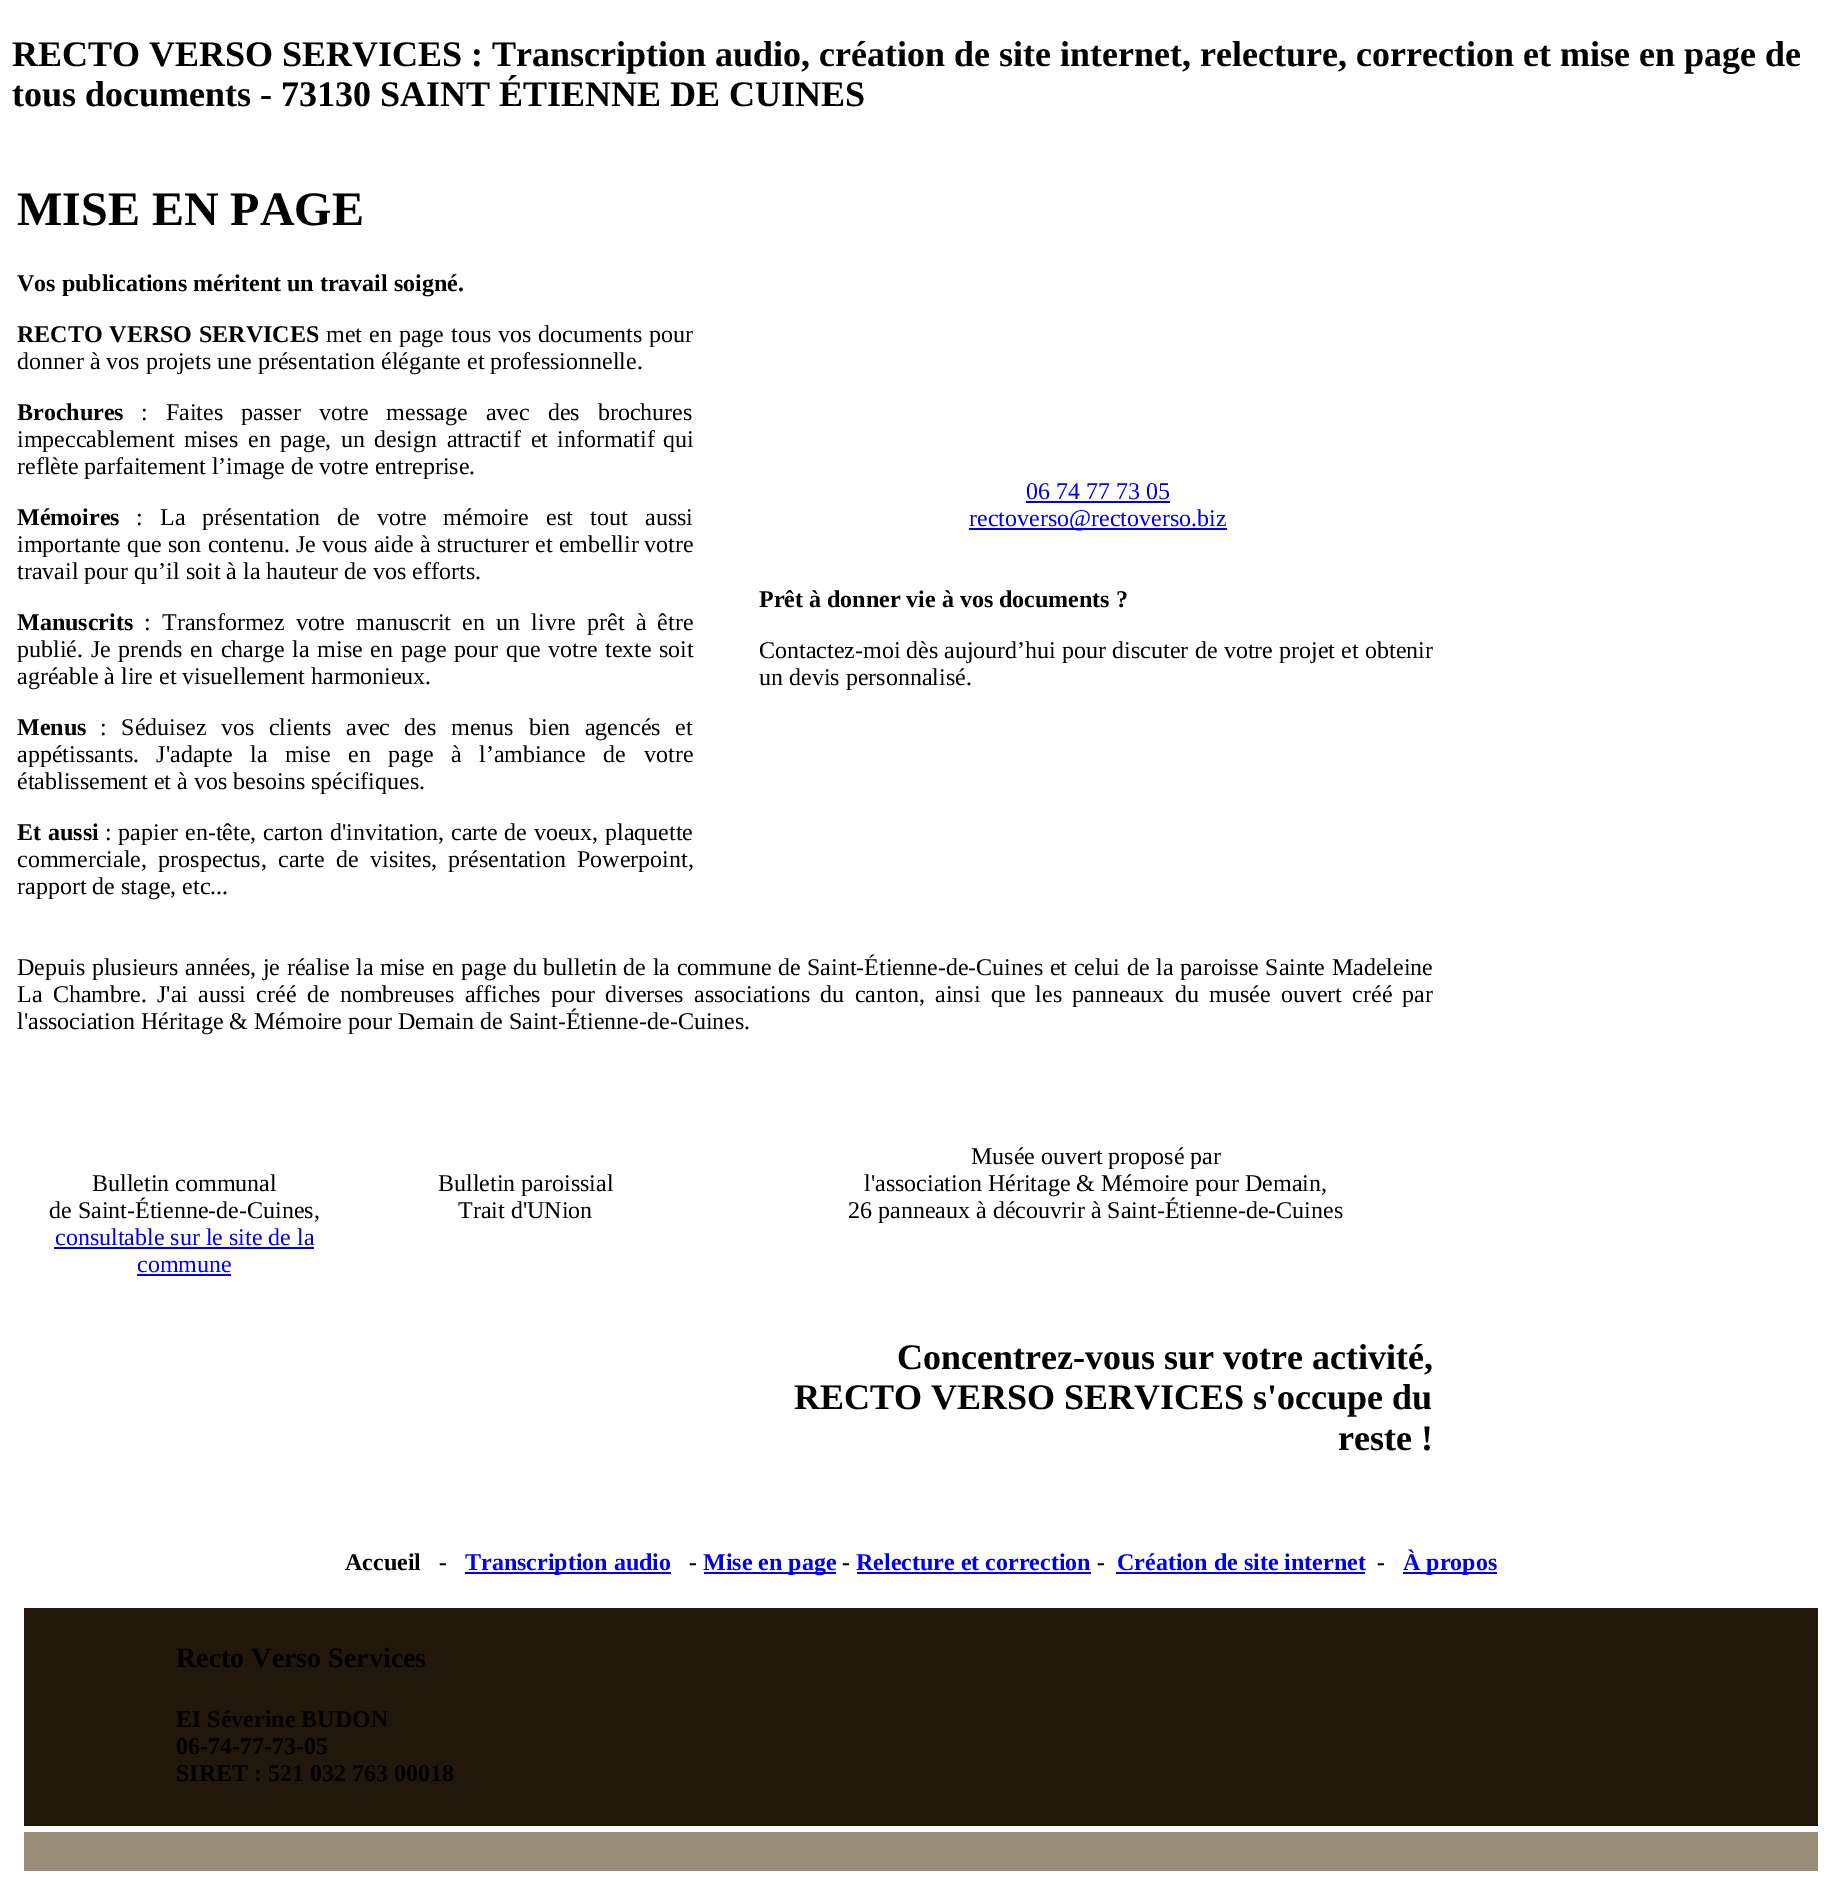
%!PS-Adobe-3.0
%%BoundingBox: 0 0 1841 1885
%%LanguageLevel: 3
%%Pages: 1
%%EndComments
%%BeginProlog
/setink { dup -16 bitshift 255 div exch dup -8 bitshift 255 and 255 div exch 255 and 255 div setrgbcolor } def
/usefont { [ exch dup neg 0 0 3 -1 roll 0 0 ] selectfont } def
%%EndProlog
%%BeginSetup
<< /PageSize [1841 1885] >> setpagedevice
%%EndSetup
%%Page: 1 1
0 1885 translate 1 -1 scale
4 setmiterlimit
16#FFFFFF setink
0 0 1841 1885 rectfill
/LiberationSerif-Bold 36 usefont
16#000000 setink
12 66 moveto (RECTO VERSO SERVICES : Transcription audio, création de site internet, relecture, correction et mise en page de) show
12 106 moveto (tous documents - 73130 SAINT ÉTIENNE DE CUINES) show
/LiberationSerif-Bold 48 usefont
17 225 moveto (MISE EN PAGE) show
/LiberationSerif-Bold 24 usefont
17 291 moveto (Vos publications méritent un travail soigné.) show
17 342 moveto 1 0 32 (RECTO VERSO SERVICES) widthshow
/LiberationSerif-Regular 24 usefont
326 342 moveto 1 0 32 (met en page tous vos documents pour) widthshow
17 369 moveto (donner à vos projets une présentation élégante et professionnelle.) show
/LiberationSerif-Bold 24 usefont
17 420 moveto (Brochures) show
/LiberationSerif-Regular 24 usefont
141 420 moveto 12 0 32 (: Faites passer votre message avec des brochures) widthshow
17 447 moveto 3.5 0 32 (impeccablement mises en page, un design attractif et informatif) widthshow
663 447 moveto (qui) show
17 474 moveto (reflète parfaitement l’image de votre entreprise.) show
/LiberationSerif-Bold 24 usefont
17 525 moveto (Mémoires) show
/LiberationSerif-Regular 24 usefont
136 525 moveto 11.25 0 32 (: La présentation de votre mémoire est tout) widthshow
645 525 moveto (aussi) show
17 552 moveto 0.25 0 32 (importante que son contenu. Je vous aide à structurer et embellir) widthshow
644 552 moveto (votre) show
17 579 moveto (travail pour qu’il soit à la hauteur de vos efforts.) show
/LiberationSerif-Bold 24 usefont
17 630 moveto (Manuscrits) show
/LiberationSerif-Regular 24 usefont
144 630 moveto 5.25 0 32 (: Transformez votre manuscrit en un livre) widthshow
587 630 moveto 5.25 0 32 (prêt à être) widthshow
17 657 moveto 1.75 0 32 (publié. Je prends en charge la mise en page pour que votre texte) widthshow
659 657 moveto (soit) show
17 684 moveto (agréable à lire et visuellement harmonieux.) show
/LiberationSerif-Bold 24 usefont
17 735 moveto (Menus) show
/LiberationSerif-Regular 24 usefont
100 735 moveto 8.5 0 32 (: Séduisez vos clients avec des menus) widthshow
529 735 moveto 8.5 0 32 (bien agencés et) widthshow
17 762 moveto 11.5 0 32 (appétissants. J'adapte la mise en page à l’ambiance de) widthshow
644 762 moveto (votre) show
17 789 moveto (établissement et à vos besoins spécifiques.) show
/LiberationSerif-Bold 24 usefont
17 840 moveto 1 0 32 (Et aussi) widthshow
/LiberationSerif-Regular 24 usefont
105 840 moveto 0.75 0 32 (: papier en-tête, carton d'invitation, carte de voeux, plaquette) widthshow
17 867 moveto 5.25 0 32 (commerciale, prospectus, carte de visites, présentation Powerpoint,) widthshow
17 894 moveto (rapport de stage, etc...) show
16#0000EE setink
1026 499 moveto (06 74 77 73 05) show
1026 501 144 2 rectfill
969 528 258 2 rectfill
969 526 moveto (rectoverso@rectoverso.biz) show
/LiberationSerif-Bold 24 usefont
16#000000 setink
759 607 moveto (Prêt à donner vie à vos documents ?) show
/LiberationSerif-Regular 24 usefont
759 658 moveto (Contactez-moi dès) show
944 658 moveto 0.25 0 32 (aujourd’hui pour discuter de votre projet et obtenir) widthshow
759 685 moveto (un devis personnalisé.) show
17 975 moveto 0.6 0 32 (Depuis plusieurs années, je réalise la mise en page du bulletin de la commune de Saint-Étienne-de-Cuines et celui de la paroisse Sainte Madeleine) widthshow
17 1002 moveto 4.3 0 32 (La Chambre. J'ai aussi créé de nombreuses affiches pour diverses associations du canton, ainsi que les panneaux du musée ouvert créé par) widthshow
[
    [(l'association Héritage & Mémoire pour Demain de Saint-Étienne-de-Cuines.) 17 1029]
    [(Bulletin communal) 92 1191]
    [(de Saint-Étienne-de-Cuines,) 49 1218]
] { aload pop moveto show } forall
16#0000EE setink
55 1245 moveto (consultable sur le site de la) show
54 1247 260 2 rectfill
137 1272 moveto (commune) show
137 1274 94 2 rectfill
16#000000 setink
[
    [(Bulletin paroissial) 438 1191]
    [(Trait d'UNion) 458 1218]
    [(Musée ouvert proposé par) 971 1164]
    [(l'association Héritage & Mémoire pour Demain,) 864 1191]
    [(26 panneaux à découvrir à Saint-Étienne-de-Cuines) 848 1218]
] { aload pop moveto show } forall
/LiberationSerif-Bold 36 usefont
[
    [(Concentrez-vous sur votre activité,) 897 1369]
    [(RECTO VERSO SERVICES s'occupe du) 794 1409]
    [(reste !) 1338 1450]
] { aload pop moveto show } forall
/LiberationSerif-Bold 24 usefont
345 1570 moveto (Accueil   -) show
16#0000EE setink
465 1572 206 2 rectfill
465 1570 moveto (Transcription audio) show
16#000000 setink
689 1570 moveto (-) show
16#0000EE setink
704 1572 132 2 rectfill
703 1570 moveto (Mise en page) show
16#000000 setink
842 1570 moveto (-) show
16#0000EE setink
856 1570 moveto (Relecture et correction) show
857 1572 234 2 rectfill
16#000000 setink
1097 1570 moveto (-) show
16#0000EE setink
1117 1570 moveto (Création de site internet) show
1116 1572 249 2 rectfill
16#000000 setink
1377 1570 moveto (-) show
16#0000EE setink
1403 1572 94 2 rectfill
1403 1570 moveto (À propos) show
16#21170B setink
24 1608 1794 218 rectfill
/LiberationSerif-Bold 28 usefont
16#000000 setink
176 1667 moveto (Recto Verso Services) show
/LiberationSerif-Bold 24 usefont
[
    [(EI Séverine BUDON) 176 1727]
    [(06-74-77-73-05) 176 1754]
    [(SIRET : 521 032 763 00018) 176 1781]
] { aload pop moveto show } forall
16#998F78 setink
24 1832 1794 39 rectfill
showpage
%%EOF
